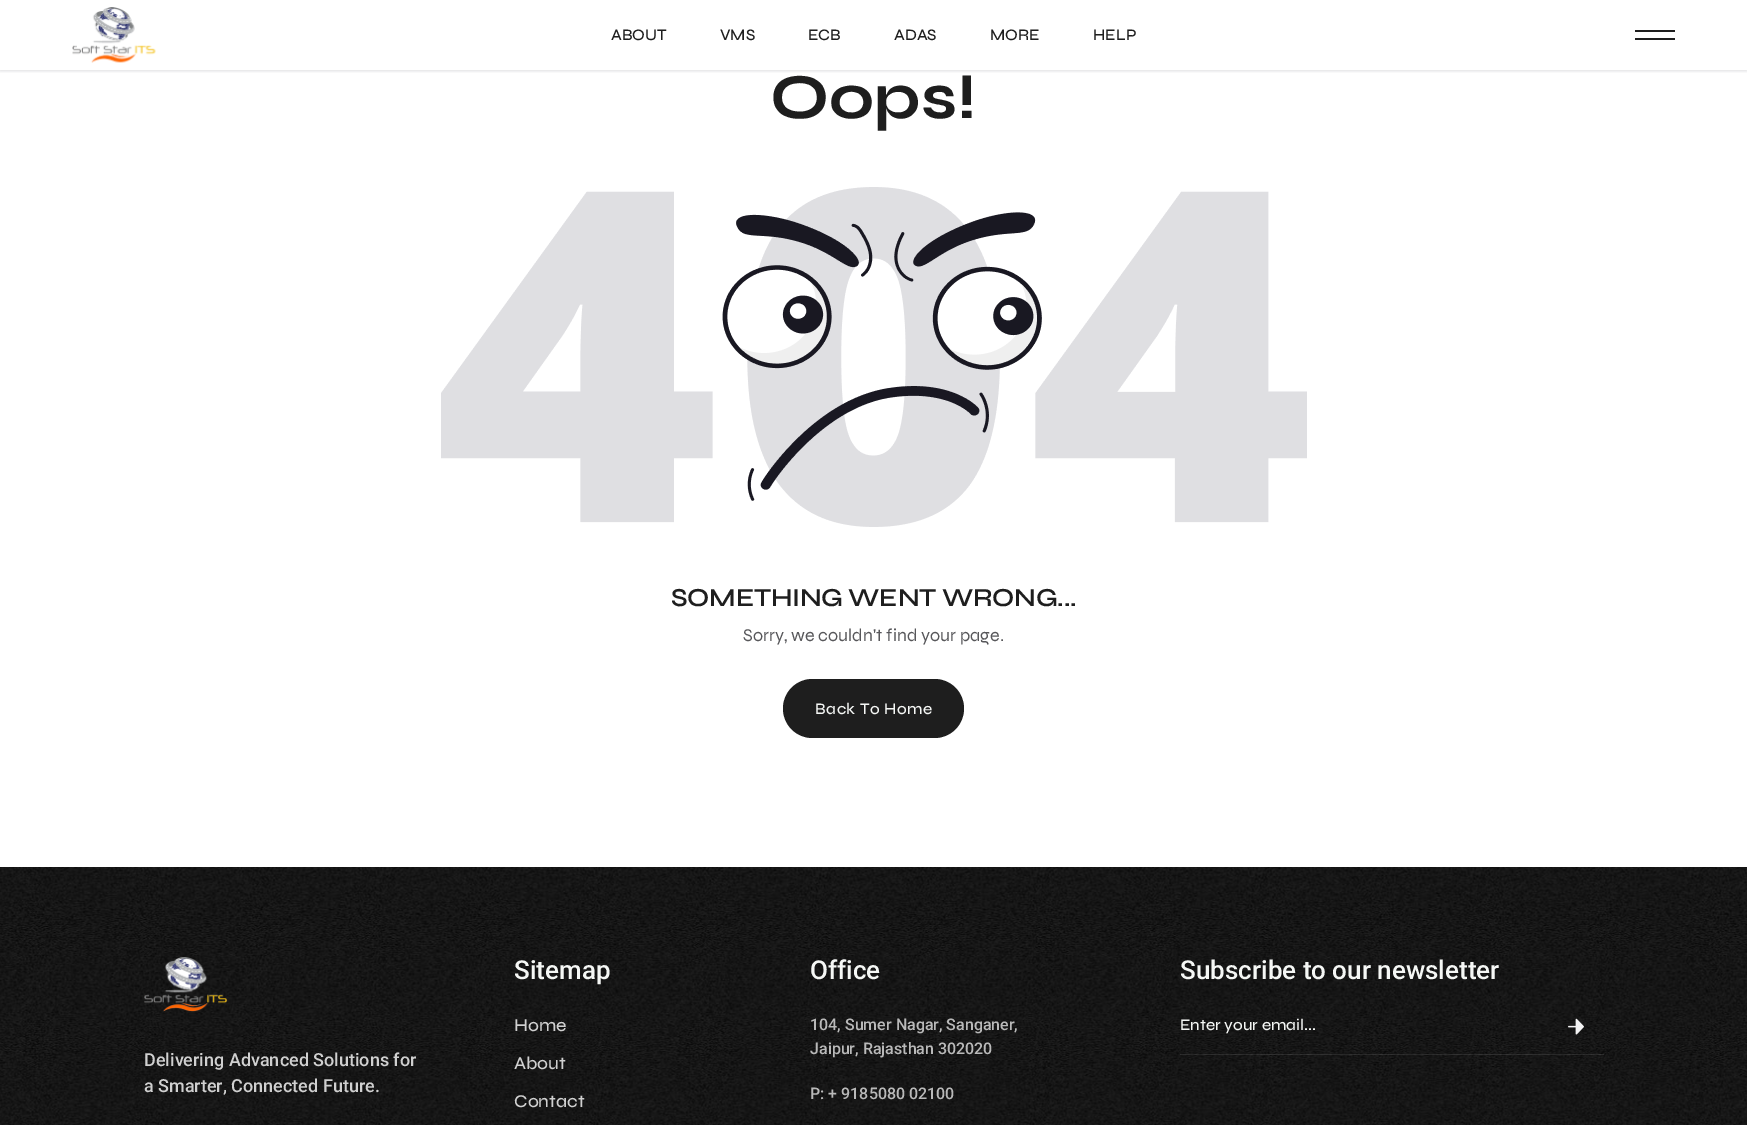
%!PS-Adobe-3.0
%%BoundingBox: 0 0 1747 1125
%%LanguageLevel: 3
%%Pages: 1
%%EndComments
%%BeginProlog
/setink { dup -16 bitshift 255 div exch dup -8 bitshift 255 and 255 div exch 255 and 255 div setrgbcolor } def
/usefont { [ exch dup neg 0 0 3 -1 roll 0 0 ] selectfont } def
/setalpha { dup .setfillconstantalpha .setstrokeconstantalpha } def
/rrect { 5 dict begin { /r /h /w /y /x } { exch def } forall
  x r add y moveto x w add y 2 copy h add r arct x w add y h add x 1 index r arct
  x y h add x y r arct x y 2 copy exch w add exch r arct closepath end } def
/softshadow { 12 dict begin { /a /b /q /h /w /y /x } { exch def } forall gsave /was 0 def
  9 -2 -9 { dup b mul 4 div /e exch def 1 sub .425 mul 2.718 exch exp 1 add a .99 .min exch div /now exch def
    1 1 now sub 1 was sub div sub setalpha /was now def
    w h .min e 2 mul add 0 gt { x e sub y e sub w e 2 mul add h e 2 mul add
      q e add b .6 mul add w h .min 2 div e add .min 0 .max rrect fill } if } for grestore end } def
/drawimage { 5 dict begin { /h /w /y /x /name } { exch def } forall
  gsave x y translate w h scale
  w h 8 [w 0 0 h 0 0] name (r) file false 3 colorimage grestore end } def
%%EndProlog
%%BeginSetup
<< /PageSize [1747 1125] /PageUsesTransparency true >> setpagedevice
%%EndSetup
%%Page: 1 1
0 .pushpdf14devicefilter
0 1125 translate 1 -1 scale
4 setmiterlimit
16#FFFFFF setink
0 0 1747 1125 rectfill
gsave
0 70 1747 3 rectclip
16#121420 setink
0 1 1747 70 0 1.5 0.14 softshadow
grestore
(img1.raw) 72 7 84 56 drawimage
/Syne-Medium 16 usefont
16#1E1E1E setink
[
    [(ABOUT) 611 40]
    [(VMS) 720 40]
    [(ECB) 808 40]
    [(ADAS) 894 40]
    [(MORE) 990 40]
    [(HELP) 1093 40]
] { aload pop moveto show } forall
1635 30 40 2 rectfill
1635 38 40 2 rectfill
/Syne-Bold 64 usefont
770 118 moveto (Oops!) show
(img2.raw) 441 187 866 340 drawimage
/Syne-SemiBold 26 usefont
671 606 moveto -0.25 0 (SOMETHING WENT WRONG...) ashow
/Syne-Regular 18 usefont
16#57575A setink
743 641 moveto (Sorry, we couldn't find your page.) show
16#1E1E1E setink
783 679 181 59 29.5 rrect fill
/Syne-Medium 16 usefont
16#F5F7F5 setink
815 714 moveto 0.5 0 (Back To Home) ashow
(img3.raw) 0 867 1747 258 drawimage
(img4.raw) 144 957 84 55 drawimage
/Roboto-Medium 18 usefont
16#D0D0D0 setink
144 1066 moveto (Delivering Advanced Solutions for) show
144 1092 moveto (a Smarter, Connected Future.) show
/Roboto-Medium 26 usefont
16#F5F7F5 setink
514 979 moveto (Sitemap) show
/Syne-Medium 18 usefont
16#D0D0D0 setink
[
    [(Home) 514 1031]
    [(About) 514 1069]
    [(Contact) 514 1107]
] { aload pop moveto show } forall
/Roboto-Medium 26 usefont
16#F5F7F5 setink
810 979 moveto (Office) show
/Roboto-Medium 16 usefont
16#B9B9B9 setink
[
    [(104, Sumer Nagar, Sanganer,) 810 1030]
    [(Jaipur, Rajasthan 302020) 810 1054]
    [(P: + 9185080 02100) 810 1099]
] { aload pop moveto show } forall
/Roboto-Medium 26 usefont
16#F5F7F5 setink
1180 979 moveto (Subscribe to our newsletter) show
0.1 setalpha
16#FFFFFF setink
1180 1054 424 1 rectfill
/Syne-Medium 16 usefont
1 setalpha
16#F5F7F5 setink
1180 1030 moveto (Enter your email...) show
(img5.raw) 1568 1018 16 17 drawimage
.poppdf14devicefilter showpage
%%EOF
